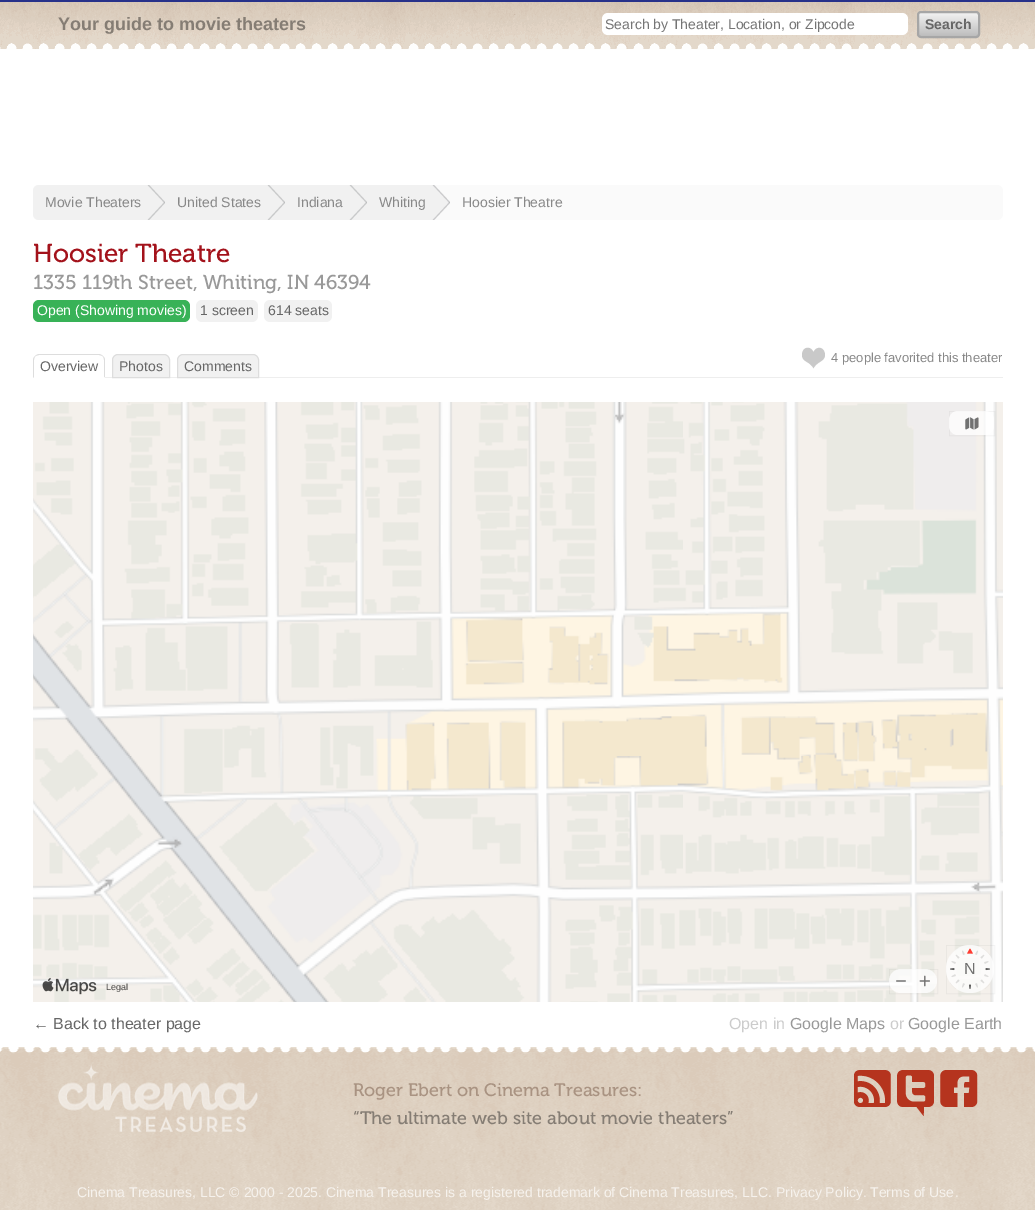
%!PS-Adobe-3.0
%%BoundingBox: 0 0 1035 1210
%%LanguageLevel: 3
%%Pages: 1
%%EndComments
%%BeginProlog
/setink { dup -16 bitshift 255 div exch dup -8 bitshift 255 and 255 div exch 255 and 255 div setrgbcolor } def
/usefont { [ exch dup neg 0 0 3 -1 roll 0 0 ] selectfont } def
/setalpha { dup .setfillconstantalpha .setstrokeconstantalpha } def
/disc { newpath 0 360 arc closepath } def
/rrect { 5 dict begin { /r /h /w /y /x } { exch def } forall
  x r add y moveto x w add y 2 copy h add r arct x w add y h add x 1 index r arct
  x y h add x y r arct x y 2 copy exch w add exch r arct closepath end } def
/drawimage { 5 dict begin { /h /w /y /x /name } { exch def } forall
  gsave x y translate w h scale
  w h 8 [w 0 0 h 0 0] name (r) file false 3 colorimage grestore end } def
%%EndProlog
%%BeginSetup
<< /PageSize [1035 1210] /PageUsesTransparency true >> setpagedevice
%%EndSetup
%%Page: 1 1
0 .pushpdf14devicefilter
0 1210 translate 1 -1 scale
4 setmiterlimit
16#FFFFFF setink
0 0 1035 1210 rectfill
(img1.raw) 0 0 1035 2 drawimage
(img2.raw) 0 2 1035 48 drawimage
/LiberationSans-Bold 18 usefont
16#857D74 setink
58 30 moveto (Your guide to movie theaters) show
16#FFFFFF setink
602 13 306 22 6 rrect fill
/LiberationSans-Regular 14 usefont
16#757575 setink
605 29 moveto (Search by Theater, Location, or Zipcode) show
gsave 919 13 59 23 2 rrect clip newpath
<< /ShadingType 2 /ColorSpace /DeviceRGB /Coords [949 13 949 36] /Extend [true true] /Function << /FunctionType 2 /Domain [0 1] /C0 [0.949 0.949 0.949] /C1 [0.741 0.741 0.741] /N 1 >> >> shfill grestore
16#A6A6A6 setink
2 setlinewidth
918 12 61 25 3 rrect stroke
/LiberationSans-Bold 14 usefont
16#666666 setink
925 29 moveto (Search) show
16#FAFAFA setink
33 185 970 35 6 rrect fill
16#F1F1F1 setink
39 185 moveto 165 185 lineto 165 220 lineto 39 220 lineto 35.5 220 33 217.5 33 214 curveto 33 191 lineto 33 187.5 35.5 185 39 185 curveto closepath fill
(img3.raw) 147 185 18 35 drawimage
/LiberationSans-Regular 14 usefont
16#888888 setink
45 207 moveto (Movie Theaters) show
16#F1F1F1 setink
165 185 285 35 rectfill
(img3.raw) 267 185 18 35 drawimage
16#888888 setink
177 207 moveto (United States) show
(img3.raw) 349 185 18 35 drawimage
297 207 moveto (Indiana) show
(img4.raw) 432 185 18 35 drawimage
379 207 moveto (Whiting) show
462 207 moveto (Hoosier Theatre) show
/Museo-Regular 26 usefont
16#A3121B setink
33 262 moveto (Hoosier Theatre) show
/Museo-Regular 20 usefont
16#999999 setink
33 289 moveto (1335 119th Street, Whiting, IN 46394) show
16#38B257 setink
33 300 157 22 6 rrect fill
/LiberationSans-Regular 14 usefont
16#FFFFFF setink
37 315 moveto (Open \(Showing movies\)) show
16#F1F1F1 setink
196 300 62 22 6 rrect fill
16#666666 setink
200 315 moveto (1 screen) show
16#F1F1F1 setink
264 300 68 22 6 rrect fill
16#666666 setink
268 315 moveto (614 seats) show
16#EEEEEE setink
105 377 898 1 rectfill
16#666666 setink
40 371 moveto (Overview) show
16#DDDDDD setink
39 354 moveto 38 354 36 355 35 356 curveto 36 356 38 355 39 355 curveto 99 355 lineto 100 355 102 356 103 356 curveto 102 355 100 354 99 354 curveto closepath fill
105 378 moveto 105 360 lineto 105 358.5 104 357 103 356 curveto 102.5 356.5 lineto 103.5 357 104 358.5 104 360 curveto 104 377 lineto closepath fill
16#FFFFFF setink
105 378 moveto 104 377 lineto 34 377 lineto 33 378 lineto closepath fill
16#DDDDDD setink
33 378 moveto 34 377 lineto 34 360 lineto 34 358.5 34.5 357 35.5 356.5 curveto 35 356 lineto 34 357 33 358.5 33 360 curveto closepath fill
16#F1F1F1 setink
118 354.5 moveto 164 354.5 lineto 167 354.5 169.5 357 169.5 360 curveto 169.5 377.5 lineto 112.5 377.5 lineto 112.5 360 lineto 112.5 357 115 354.5 118 354.5 curveto closepath gsave fill grestore
16#DDDDDD setink
1 setlinewidth
stroke
16#666666 setink
119 371 moveto (Photos) show
16#F1F1F1 setink
183 354.5 moveto 253 354.5 lineto 256 354.5 258.5 357 258.5 360 curveto 258.5 377.5 lineto 177.5 377.5 lineto 177.5 360 lineto 177.5 357 180 354.5 183 354.5 curveto closepath gsave fill grestore
16#DDDDDD setink
stroke
16#666666 setink
184 371 moveto (Comments) show
(img5.raw) 802 347 23 22 drawimage
/LiberationSans-Regular 13 usefont
16#888888 setink
831 362 moveto (4 people favorited this theater) show
(img6.raw) 33 402 970 600 drawimage
0.05 setalpha
16#000000 setink
0.5 setlinewidth
949.25 411.25 45.5 24.5 rectstroke
0.75 setalpha
16#FFFFFF setink
949 411 45 24 9 rrect fill
1 setalpha
(img7.raw) 965 417 14 13 drawimage
0.05 setalpha
16#000000 setink
889.25 969.25 48.5 24.5 rectstroke
0.75 setalpha
16#FFFFFF setink
889 969 48 24 12 rrect fill
1 setalpha
(img8.raw) 896 980 10 2 drawimage
(img9.raw) 919 975 11 12 drawimage
0.05 setalpha
16#000000 setink
946.25 945.25 48.5 48.5 rectstroke
0.75 setalpha
16#FFFFFF setink
970 969 24 disc fill
1 setalpha
(img10.raw) 950 948 40 41 drawimage
/LiberationSans-Regular 16 usefont
16#70706F setink
964 974 moveto (N) show
(img11.raw) 42 977 55 18 drawimage
/LiberationSans-Regular 9 usefont
16#494846 setink
106 990 moveto (Legal) show
/LiberationSans-Regular 16 usefont
16#666666 setink
33 1029 moveto (← Back to theater page) show
16#CCCCCC setink
729 1029 moveto (Open in) show
16#999999 setink
790 1029 moveto (Google Maps) show
16#CCCCCC setink
890 1029 moveto (or) show
16#999999 setink
908 1029 moveto (Google Earth) show
(img12.raw) 0 1047 1035 163 drawimage
(img13.raw) 58 1064 200 68 drawimage
/Museo-Regular 18 usefont
16#A99382 setink
353 1096 moveto (Roger Ebert on Cinema Treasures:) show
16#857D74 setink
353 1124 moveto (“The ultimate web site about movie theaters”) show
(img14.raw) 854 1070 37 37 drawimage
(img15.raw) 897 1070 37 46 drawimage
(img16.raw) 940 1070 38 37 drawimage
/LiberationSans-Regular 14 usefont
16#F6F2ED setink
[
    [(Cinema Treasures, LLC © 2000 -) 77 1197]
    [(2025.) 287 1197]
    [(Cinema Treasures is a registered trademark of Cinema Treasures, LLC. Privacy Policy) 326 1197]
    [(.) 863 1197]
    [(Terms of Use) 870 1197]
    [(.) 955 1197]
] { aload pop moveto show } forall
.poppdf14devicefilter showpage
%%EOF
